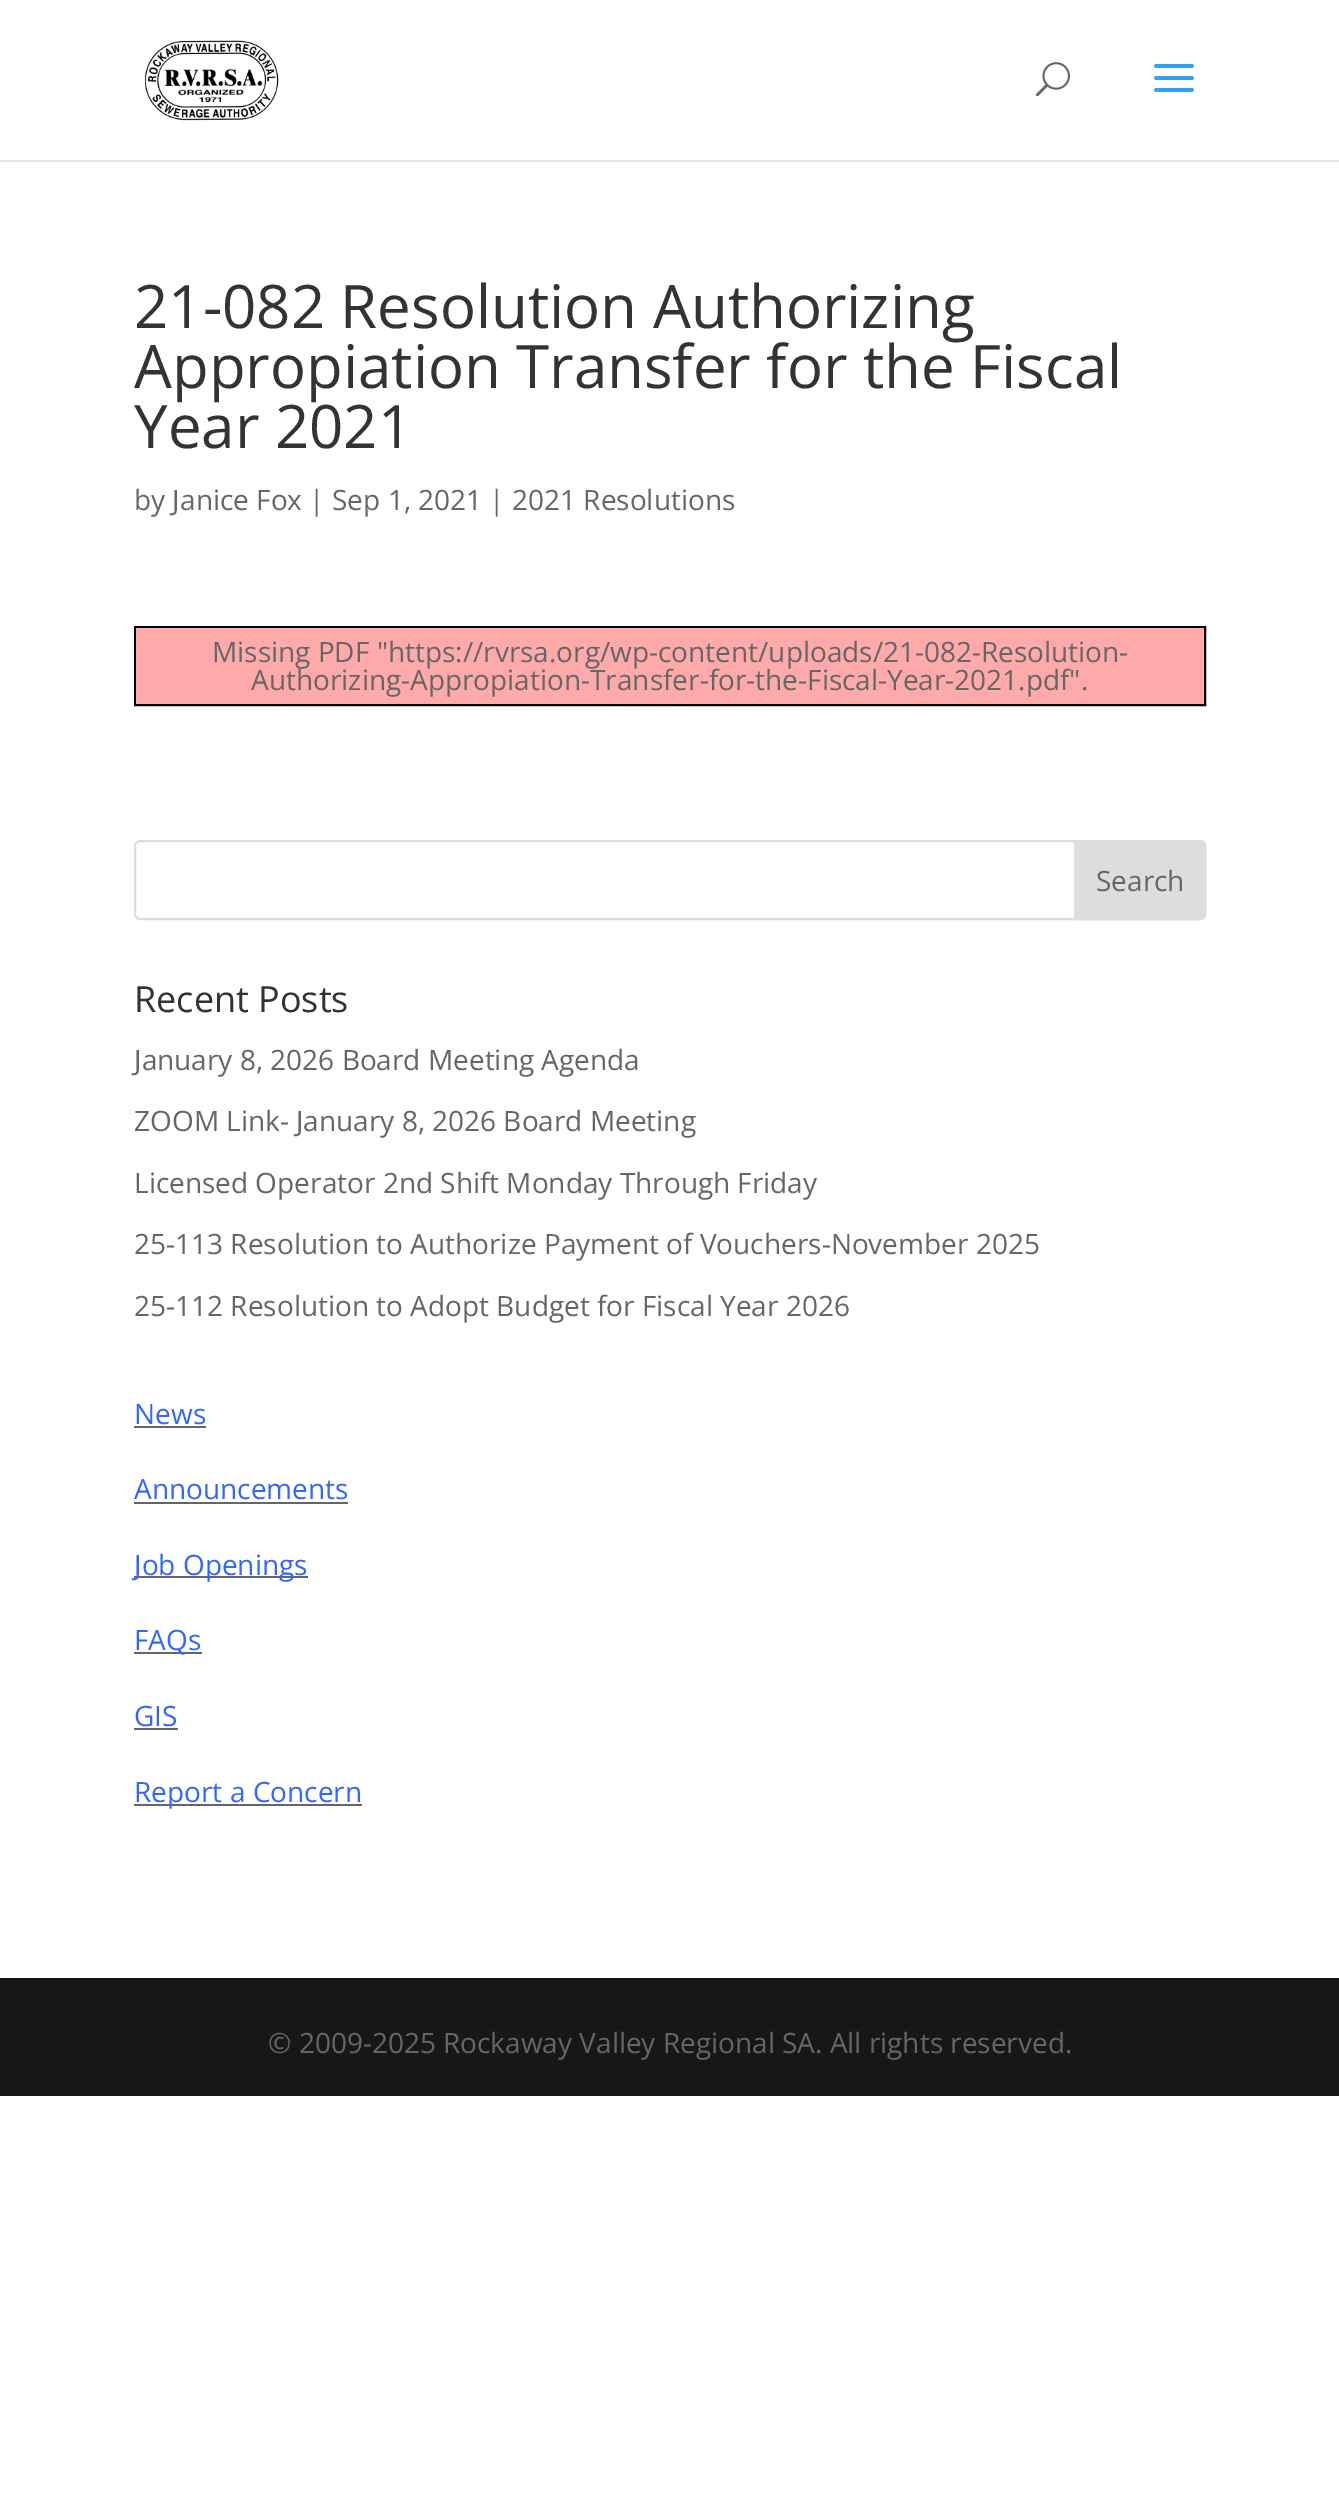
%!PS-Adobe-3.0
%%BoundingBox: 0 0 1339 2518
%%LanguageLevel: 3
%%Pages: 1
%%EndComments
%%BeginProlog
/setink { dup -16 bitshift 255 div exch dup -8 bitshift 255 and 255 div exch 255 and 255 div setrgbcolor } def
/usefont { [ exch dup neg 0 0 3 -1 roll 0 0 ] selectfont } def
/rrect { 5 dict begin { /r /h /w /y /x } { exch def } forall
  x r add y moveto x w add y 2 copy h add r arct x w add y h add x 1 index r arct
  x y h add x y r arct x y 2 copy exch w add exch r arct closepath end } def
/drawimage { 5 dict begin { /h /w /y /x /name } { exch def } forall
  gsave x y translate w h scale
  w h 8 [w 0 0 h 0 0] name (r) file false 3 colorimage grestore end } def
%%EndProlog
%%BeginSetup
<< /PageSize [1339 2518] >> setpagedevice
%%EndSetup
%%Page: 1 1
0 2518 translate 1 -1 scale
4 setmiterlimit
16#FFFFFF setink
0 0 1339 2518 rectfill
16#E6E6E6 setink
0 160 1339 2 rectfill
(img1.raw) 144 40 135 81 drawimage
(img2.raw) 1035 62 35 35 drawimage
(img3.raw) 1154 64 40 28 drawimage
/OpenSans-Regular 60 usefont
16#333333 setink
[
    [(21-082 Resolution Authorizing) 134 328]
    [(Appropiation Transfer for the Fiscal) 134 388]
    [(Year 2021) 134 448]
] { aload pop moveto show } forall
/OpenSans-Regular 28 usefont
16#666666 setink
134 510 moveto (by Janice Fox | Sep 1, 2021 | 2021 Resolutions) show
16#000000 setink
2 setlinewidth
135 627 1070 78 rectstroke
16#FFAAAA setink
136 628 1068 76 rectfill
16#666666 setink
212 662 moveto (Missing PDF "https://rvrsa.org/wp-content/uploads/21-082-Resolution-) show
251 690 moveto (Authorizing-Appropiation-Transfer-for-the-Fiscal-Year-2021.pdf".) show
16#DDDDDD setink
135 841 1070 78 5 rrect stroke
1075 841 moveto 1200 841 lineto 1203 841 1205 843 1205 846 curveto 1205 914 lineto 1205 917 1203 919 1200 919 curveto 1075 919 lineto closepath gsave fill grestore
stroke
16#666666 setink
1096 891 moveto (Search) show
/OpenSans-Regular 36 usefont
16#333333 setink
134 1012 moveto (Recent Posts) show
/OpenSans-Regular 28 usefont
16#666666 setink
[
    [(January 8, 2026 Board Meeting Agenda) 134 1070]
    [(ZOOM Link- January 8, 2026 Board Meeting) 134 1131]
    [(Licensed Operator 2nd Shift Monday Through Friday) 134 1193]
    [(25-113 Resolution to Authorize Payment of Vouchers-November 2025) 134 1254]
    [(25-112 Resolution to Adopt Budget for Fiscal Year 2026) 134 1316]
] { aload pop moveto show } forall
16#3366FF setink
134 1424 moveto (News) show
16#666666 setink
134 1426 72 2 rectfill
16#3366FF setink
134 1499 moveto (Announcements) show
16#666666 setink
134 1502 214 2 rectfill
134 1576 174 2 rectfill
16#3366FF setink
134 1575 moveto (Job Openings) show
16#666666 setink
134 1652 68 2 rectfill
16#3366FF setink
134 1650 moveto (FAQs) show
134 1726 moveto (GIS) show
16#666666 setink
134 1728 44 2 rectfill
134 1804 228 2 rectfill
16#3366FF setink
134 1802 moveto (Report a Concern) show
16#171717 setink
0 1978 1339 118 rectfill
16#666666 setink
268 2053 moveto (© 2009-2025 Rockaway Valley Regional SA. All rights reserved.) show
showpage
%%EOF
